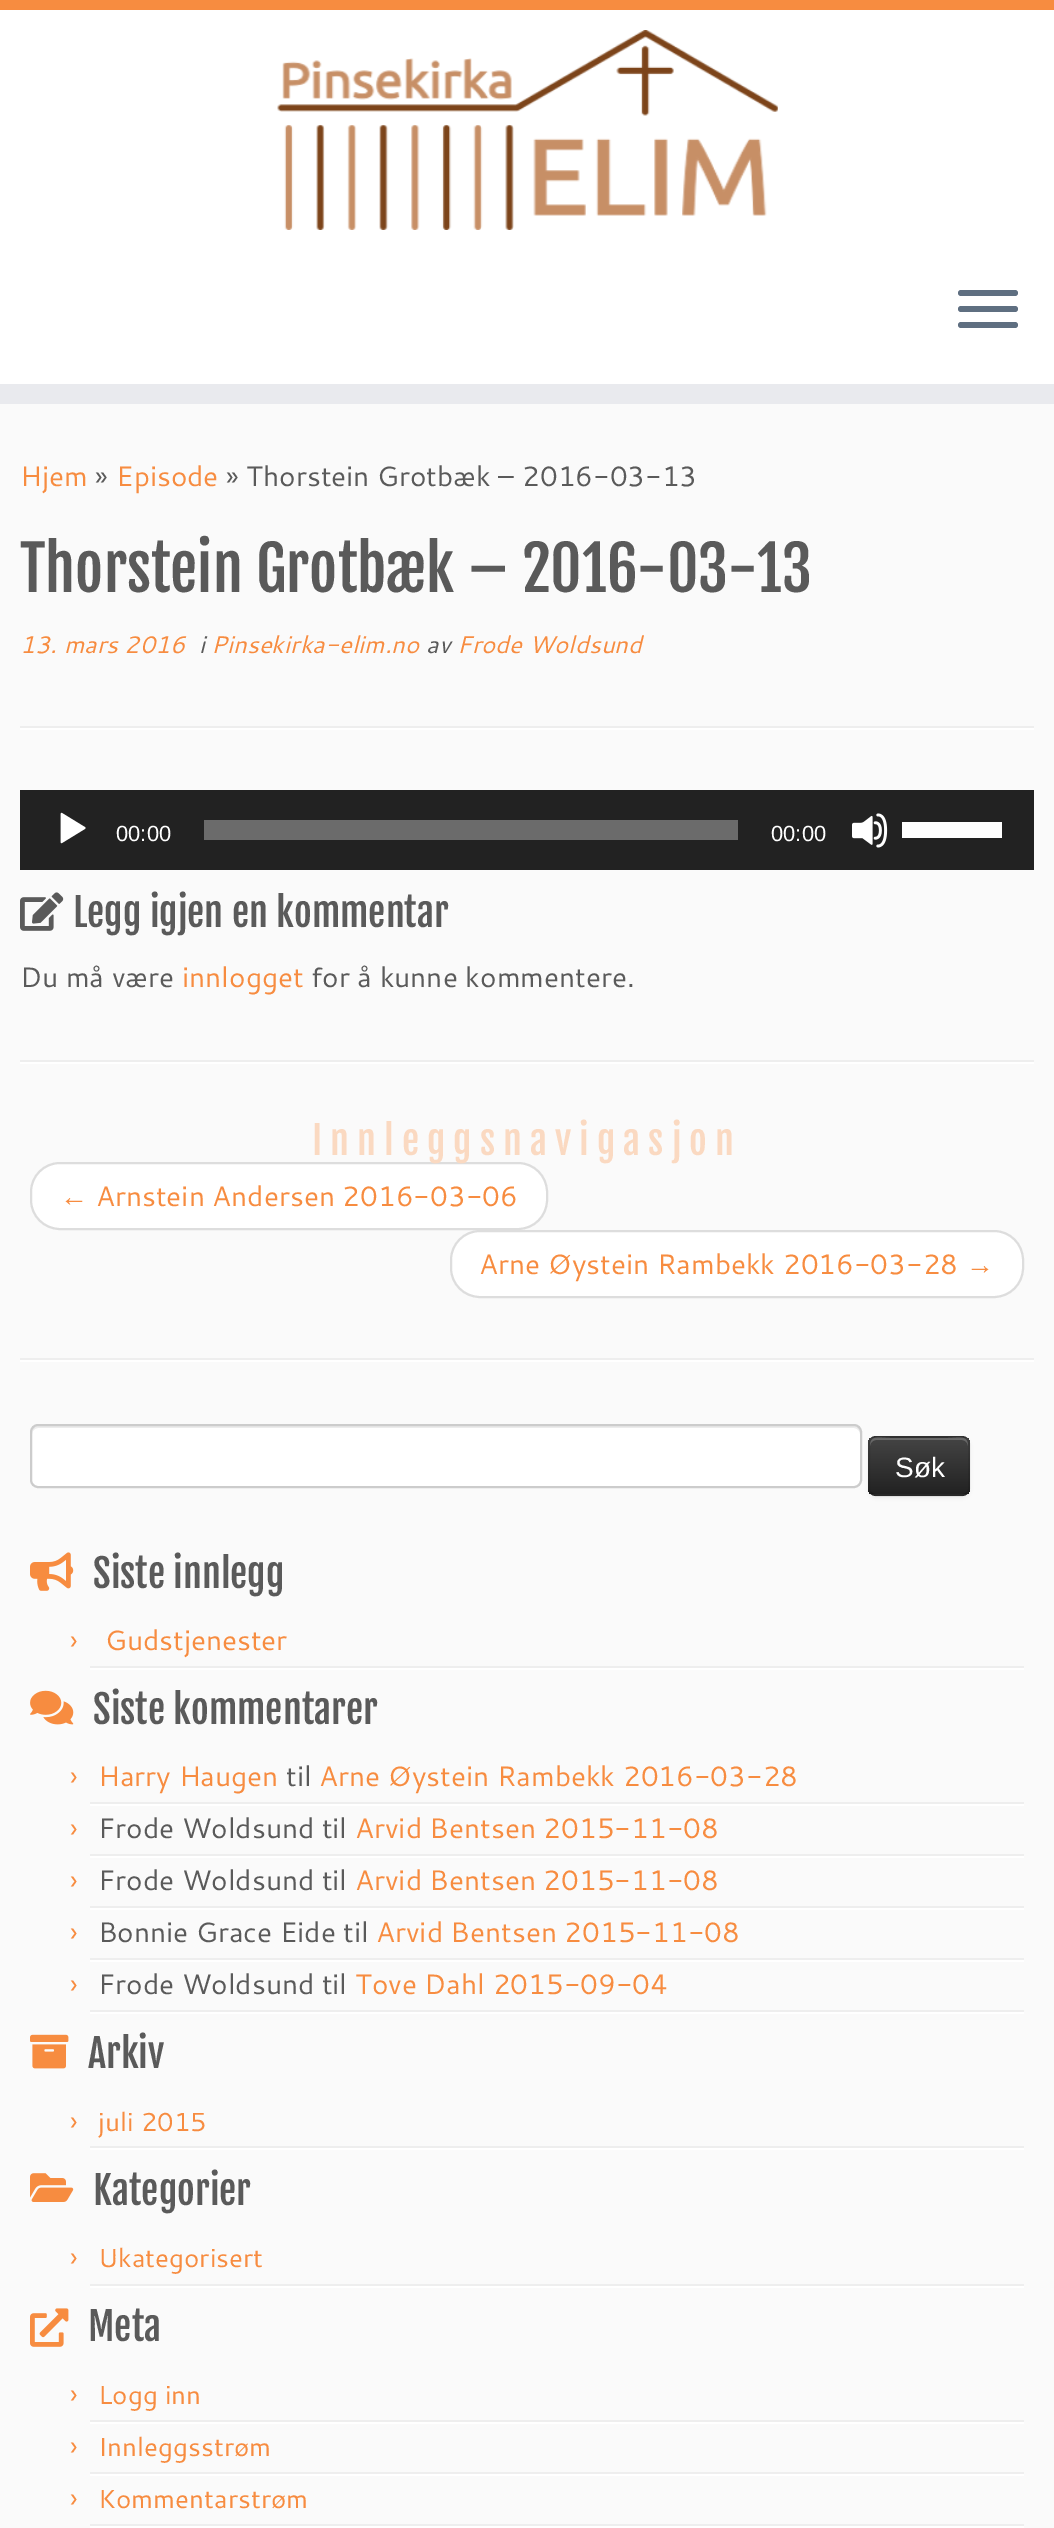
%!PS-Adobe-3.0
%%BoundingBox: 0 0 1054 2528
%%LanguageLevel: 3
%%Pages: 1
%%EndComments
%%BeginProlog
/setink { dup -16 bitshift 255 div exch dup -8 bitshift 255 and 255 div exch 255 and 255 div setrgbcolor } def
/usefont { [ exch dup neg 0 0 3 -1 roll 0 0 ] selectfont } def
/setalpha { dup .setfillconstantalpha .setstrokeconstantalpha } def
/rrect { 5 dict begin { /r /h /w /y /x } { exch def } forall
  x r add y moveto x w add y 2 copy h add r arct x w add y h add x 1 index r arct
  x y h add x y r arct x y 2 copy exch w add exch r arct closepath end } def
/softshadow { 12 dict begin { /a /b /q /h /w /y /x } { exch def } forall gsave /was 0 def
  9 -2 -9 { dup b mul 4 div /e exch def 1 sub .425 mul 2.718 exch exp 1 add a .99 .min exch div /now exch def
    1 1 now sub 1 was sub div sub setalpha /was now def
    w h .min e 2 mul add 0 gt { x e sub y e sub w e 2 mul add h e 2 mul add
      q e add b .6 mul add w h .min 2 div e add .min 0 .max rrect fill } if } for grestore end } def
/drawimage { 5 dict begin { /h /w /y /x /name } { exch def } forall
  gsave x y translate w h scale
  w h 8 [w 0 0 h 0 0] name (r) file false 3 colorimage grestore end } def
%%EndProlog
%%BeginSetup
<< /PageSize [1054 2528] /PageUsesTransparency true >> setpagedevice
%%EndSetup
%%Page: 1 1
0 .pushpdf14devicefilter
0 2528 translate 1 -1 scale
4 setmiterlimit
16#FAFAFA setink
0 0 1054 2528 rectfill
[
    [0 10 1054 374 16#FFFFFF]
    [0 0 1054 10 16#F78C40]
    [0 384 1054 20 16#E9EAEE]
] { aload pop setink rectfill } forall
(img1.raw) 277 30 501 200 drawimage
16#5F6F81 setink
958 290 60 6 3 rrect fill
958 306 60 6 3 rrect fill
958 322 60 6 3 rrect fill
/Cantarell-Regular 28 usefont
16#F78C40 setink
20 486 moveto (Hjem) show
16#5A5A5A setink
95 486 moveto (») show
16#F78C40 setink
116 486 moveto (Episode) show
16#5A5A5A setink
226 486 moveto (» Thorstein Grotbæk – 2016-03-13) show
/FjallaOne-Regular 60.75 usefont
20 592 moveto (Thorstein Grotbæk – 2016-03-13) show
/Cantarell-Italic 24 usefont
16#F78C40 setink
20 653 moveto (13. mars 2016) show
16#5A5A5A setink
199 653 moveto (i) show
16#F78C40 setink
211 653 moveto (Pinsekirka-elim.no) show
16#5A5A5A setink
426 653 moveto (av) show
16#F78C40 setink
457 653 moveto (Frode Woldsund) show
[
    [20 726 1014 2 16#EEEEEE]
    [20 728 1014 2 16#FFFFFF]
    [20 790 1014 80 16#222222]
] { aload pop setink rectfill } forall
(img2.raw) 60 812 26 32 drawimage
/LiberationSans-Regular 22 usefont
16#FFFFFF setink
116 841 moveto (00:00) show
16#6B6B6B setink
204 820 534 20 rectfill
16#FFFFFF setink
771 841 moveto (00:00) show
(img3.raw) 852 813 36 35 drawimage
902 822 100 16 rectfill
(img4.raw) 20 892 44 39 drawimage
/FjallaOne-Regular 38.4 usefont
16#5A5A5A setink
73 927 moveto (Legg igjen en kommentar) show
/Cantarell-Regular 28 usefont
20 987 moveto (Du må være) show
16#F78C40 setink
182 987 moveto (innlogget) show
16#5A5A5A setink
311 987 moveto (for å kunne kommentere.) show
16#EEEEEE setink
20 1060 1014 2 rectfill
16#FFFFFF setink
20 1062 1014 2 rectfill
31 1163 516 66 29 rrect gsave fill grestore
16#DDDDDD setink
2 setlinewidth
stroke
/FjallaOne-Regular 38.4 usefont
16#FAD9C1 setink
312 1155 moveto 8 0 (Innleggsnavigasjon) ashow
/LiberationSerif-Regular 28 usefont
16#F78C40 setink
60 1206 moveto (←) show
/Cantarell-Regular 28 usefont
96 1206 moveto (Arnstein Andersen 2016-03-06) show
16#FFFFFF setink
451 1231 572 66 29 rrect gsave fill grestore
16#DDDDDD setink
stroke
16#F78C40 setink
479 1274 moveto (Arne Øystein Rambekk 2016-03-28) show
/LiberationSerif-Regular 28 usefont
966 1274 moveto (→) show
16#EEEEEE setink
20 1358 1014 2 rectfill
16#FFFFFF setink
20 1360 1014 2 rectfill
30 1424 832 64 8 rrect fill
16#ECECEC setink
38 1428 moveto 854 1428 lineto 857 1428 860 1431 860 1434 curveto 860 1430 859 1426 854 1426 curveto 38 1426 lineto 33 1426 32 1430 32 1434 curveto 32 1431 35 1428 38 1428 curveto closepath fill
16#CCCCCC setink
31 1425 830 62 7 rrect stroke
16#000000 setink
868 1438 102 60 8 2 0.05 softshadow
16#363636 setink
868 1436 102 60 8 rrect fill
gsave
868 1436 102 60 8 rrect clip newpath
gsave 868 1438 moveto 970 1438 lineto 970 1494 lineto 868 1494 lineto closepath clip newpath
<< /ShadingType 2 /ColorSpace /DeviceRGB /Coords [919 1438 919 1494] /Extend [true true] /Function << /FunctionType 2 /Domain [0 1] /C0 [0.267 0.267 0.267] /C1 [0.133 0.133 0.133] /N 1 >> >> shfill grestore
grestore
0.2 setalpha
16#FFFFFF setink
876 1440 moveto 962 1440 lineto 965 1440 968 1443 968 1446 curveto 968 1434 957 1438 948 1438 curveto 890 1438 lineto 881 1438 870 1434 870 1446 curveto 870 1443 873 1440 876 1440 curveto closepath fill
0.25 setalpha
16#000000 setink
967 1493 moveto 965.5 1494.5 964 1495 962 1495 curveto 876 1495 lineto 874 1495 872.5 1494.5 871 1493 curveto stroke
0.1 setalpha
871 1493 moveto 869.5 1491.5 869 1490 869 1488 curveto 869 1444 lineto 869 1442 869.5 1440.5 871 1439 curveto 872.5 1437.5 874 1437 876 1437 curveto 962 1437 lineto 964 1437 965.5 1437.5 967 1439 curveto 968.5 1440.5 969 1442 969 1444 curveto 969 1488 lineto 969 1490 968.5 1491.5 967 1493 curveto stroke
/LiberationSans-Regular 28 usefont
1 setalpha
16#FFFFFF setink
895 1477 moveto (Søk) show
(img5.raw) 30 1552 44 39 drawimage
/FjallaOne-Regular 38.4 usefont
16#5A5A5A setink
93 1588 moveto (Siste innlegg) show
16#EEEEEE setink
90 1666 934 2 rectfill
/Cantarell-Regular 28 usefont
16#F78C40 setink
70 1650 moveto (›) show
105 1650 moveto (Gudstjenester) show
16#FFFFFF setink
90 1668 934 2 rectfill
(img6.raw) 30 1690 44 35 drawimage
/FjallaOne-Regular 38.4 usefont
16#5A5A5A setink
93 1724 moveto (Siste kommentarer) show
16#EEEEEE setink
90 1802 934 2 rectfill
/Cantarell-Regular 28 usefont
16#F78C40 setink
70 1786 moveto (›) show
98 1786 moveto (Harry Haugen) show
16#5A5A5A setink
286 1786 moveto (til) show
16#F78C40 setink
319 1786 moveto (Arne Øystein Rambekk 2016-03-28) show
16#FFFFFF setink
90 1804 934 2 rectfill
16#EEEEEE setink
90 1854 934 2 rectfill
16#F78C40 setink
70 1838 moveto (›) show
16#5A5A5A setink
98 1838 moveto (Frode Woldsund til) show
16#F78C40 setink
355 1838 moveto (Arvid Bentsen 2015-11-08) show
16#FFFFFF setink
90 1856 934 2 rectfill
16#EEEEEE setink
90 1906 934 2 rectfill
16#F78C40 setink
70 1890 moveto (›) show
16#5A5A5A setink
98 1890 moveto (Frode Woldsund til) show
16#F78C40 setink
355 1890 moveto (Arvid Bentsen 2015-11-08) show
16#FFFFFF setink
90 1908 934 2 rectfill
16#EEEEEE setink
90 1958 934 2 rectfill
16#F78C40 setink
70 1942 moveto (›) show
16#5A5A5A setink
98 1942 moveto (Bonnie Grace Eide til) show
16#F78C40 setink
376 1942 moveto (Arvid Bentsen 2015-11-08) show
16#FFFFFF setink
90 1960 934 2 rectfill
16#EEEEEE setink
90 2010 934 2 rectfill
16#F78C40 setink
70 1994 moveto (›) show
16#5A5A5A setink
98 1994 moveto (Frode Woldsund til) show
16#F78C40 setink
355 1994 moveto (Tove Dahl 2015-09-04) show
16#FFFFFF setink
90 2012 934 2 rectfill
(img7.raw) 30 2034 39 35 drawimage
/FjallaOne-Regular 38.4 usefont
16#5A5A5A setink
88 2068 moveto (Arkiv) show
16#EEEEEE setink
90 2146 934 2 rectfill
/Cantarell-Regular 28 usefont
16#F78C40 setink
70 2131 moveto (›) show
/Cantarell-Regular 26 usefont
98 2131 moveto (juli 2015) show
16#FFFFFF setink
90 2148 934 2 rectfill
(img8.raw) 30 2173 44 29 drawimage
/FjallaOne-Regular 38.4 usefont
16#5A5A5A setink
93 2205 moveto (Kategorier) show
16#EEEEEE setink
90 2284 934 2 rectfill
/Cantarell-Regular 28 usefont
16#F78C40 setink
70 2267 moveto (›) show
/Cantarell-Regular 26 usefont
98 2267 moveto (Ukategorisert) show
16#FFFFFF setink
90 2286 934 2 rectfill
(img9.raw) 30 2308 39 39 drawimage
/FjallaOne-Regular 38.4 usefont
16#5A5A5A setink
88 2341 moveto (Meta) show
16#EEEEEE setink
90 2420 934 2 rectfill
/Cantarell-Regular 28 usefont
16#F78C40 setink
70 2404 moveto (›) show
/Cantarell-Regular 26 usefont
98 2404 moveto (Logg inn) show
16#FFFFFF setink
90 2422 934 2 rectfill
16#EEEEEE setink
90 2472 934 2 rectfill
/Cantarell-Regular 28 usefont
16#F78C40 setink
70 2456 moveto (›) show
/Cantarell-Regular 26 usefont
98 2456 moveto (Innleggsstrøm) show
16#FFFFFF setink
90 2474 934 2 rectfill
16#EEEEEE setink
90 2524 934 2 rectfill
/Cantarell-Regular 28 usefont
16#F78C40 setink
70 2508 moveto (›) show
/Cantarell-Regular 26 usefont
98 2508 moveto (Kommentarstrøm) show
16#FFFFFF setink
90 2526 934 2 rectfill
.poppdf14devicefilter showpage
%%EOF
